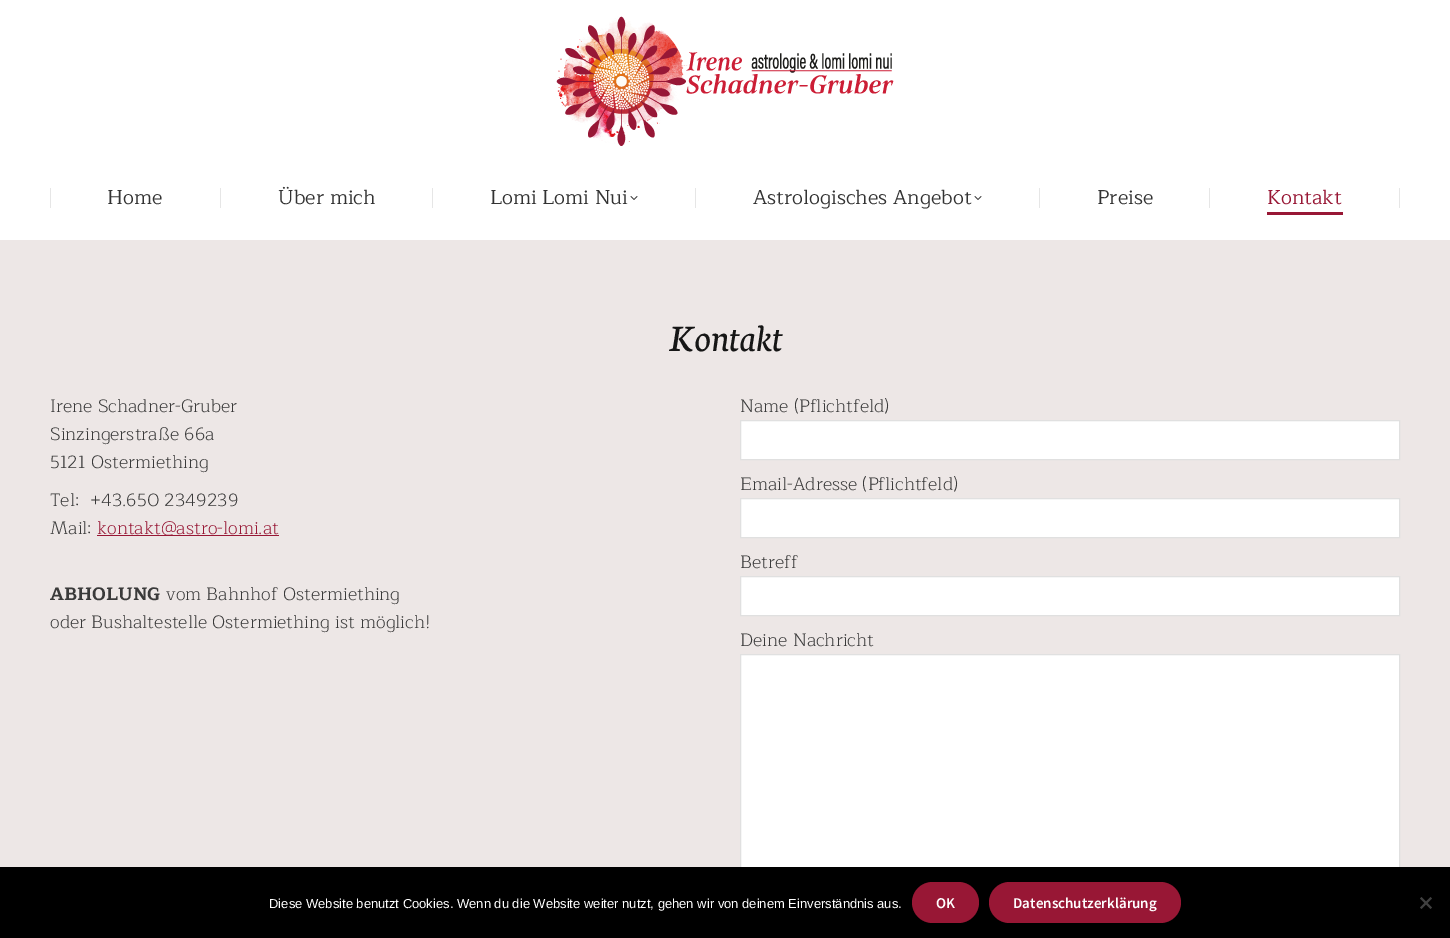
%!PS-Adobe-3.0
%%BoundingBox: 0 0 1450 938
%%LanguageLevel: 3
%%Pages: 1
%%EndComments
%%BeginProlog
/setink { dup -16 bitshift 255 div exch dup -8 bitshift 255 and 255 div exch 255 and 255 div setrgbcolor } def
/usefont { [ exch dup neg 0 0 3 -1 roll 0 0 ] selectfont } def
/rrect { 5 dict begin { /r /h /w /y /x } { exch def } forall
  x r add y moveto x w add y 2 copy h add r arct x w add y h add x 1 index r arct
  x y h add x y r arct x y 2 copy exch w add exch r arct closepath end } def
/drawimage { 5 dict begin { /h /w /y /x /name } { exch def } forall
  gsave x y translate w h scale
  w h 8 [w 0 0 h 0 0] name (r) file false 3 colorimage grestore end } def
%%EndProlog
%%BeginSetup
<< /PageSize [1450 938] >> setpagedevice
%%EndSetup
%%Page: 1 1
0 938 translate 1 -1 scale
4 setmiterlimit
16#EDE7E6 setink
0 0 1450 938 rectfill
16#FFFFFF setink
0 0 1450 240 rectfill
(img1.raw) 556 16 338 130 drawimage
16#E6E6E6 setink
50 188 1 20 rectfill
/Maitree-Regular 20 usefont
16#333333 setink
107 204 moveto (Home) show
16#E6E6E6 setink
220 188 1 20 rectfill
16#333333 setink
278 204 moveto (Über mich) show
16#E6E6E6 setink
432 188 1 20 rectfill
16#333333 setink
490 204 moveto (Lomi Lomi Nui) show
(img2.raw) 630 196 8 4 drawimage
16#E6E6E6 setink
695 188 1 20 rectfill
16#333333 setink
753 204 moveto (Astrologisches Angebot) show
(img2.raw) 974 196 8 4 drawimage
16#E6E6E6 setink
1039 188 1 20 rectfill
16#333333 setink
1097 204 moveto (Preise) show
16#E6E6E6 setink
1209 188 1 20 rectfill
16#981735 setink
1267 204 moveto (Kontakt) show
1267 212 76 3 rectfill
16#E6E6E6 setink
1399 188 1 20 rectfill
/Neuton-Italic 40 usefont
16#161616 setink
668 351 moveto (Kontakt) show
/Maitree-Light 18 usefont
16#3A3A3A setink
[
    [(Irene Schadner-Gruber) 50 412]
    [(Sinzingerstraße 66a) 50 440]
    [(5121 Ostermiething) 50 468]
    [(Tel:  +43.650 2349239) 50 506]
    [(Mail:) 50 534]
] { aload pop moveto show } forall
16#981735 setink
97 535 182 1 rectfill
97 534 moveto (kontakt@astro-lomi.at) show
/Maitree-Bold 18 usefont
16#3A3A3A setink
50 600 moveto (ABHOLUNG) show
/Maitree-Light 18 usefont
[
    [(vom Bahnhof Ostermiething) 166 600]
    [(oder Bushaltestelle Ostermiething ist möglich!) 50 628]
    [(Name \(Pflichtfeld\)) 740 412]
] { aload pop moveto show } forall
16#FFFFFF setink
740.5 420.5 moveto 1399.5 420.5 lineto 1399.5 459.5 lineto 740.5 459.5 lineto closepath gsave fill grestore
16#E0E0E0 setink
stroke
16#3A3A3A setink
740 490 moveto (Email-Adresse \(Pflichtfeld\)) show
16#FFFFFF setink
740.5 498.5 moveto 1399.5 498.5 lineto 1399.5 537.5 lineto 740.5 537.5 lineto closepath gsave fill grestore
16#E0E0E0 setink
stroke
16#3A3A3A setink
740 568 moveto (Betreff) show
16#FFFFFF setink
740.5 576.5 moveto 1399.5 576.5 lineto 1399.5 615.5 lineto 740.5 615.5 lineto closepath gsave fill grestore
16#E0E0E0 setink
stroke
16#3A3A3A setink
740 646 moveto (Deine Nachricht) show
16#FFFFFF setink
741 655 658 212 rectfill
16#E0E0E0 setink
740.5 654.5 659 271 rectstroke
16#000000 setink
0 867 1450 71 rectfill
/LiberationSans-Regular 13 usefont
16#FFFFFF setink
269 908 moveto (Diese Website benutzt Cookies. Wenn du die Website weiter nutzt, gehen wir von deinem Einverständnis aus.) show
16#981735 setink
912 882 67 41 20.5 rrect fill
/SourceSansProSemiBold-SemiBold 15 usefont
16#FFFFFF setink
936 908 moveto (OK) show
16#981735 setink
989 882 192 41 20.5 rrect fill
16#FFFFFF setink
1013 908 moveto (Datenschutzerklärung) show
16#404040 setink
1430.5 897 moveto 1432 898.5 lineto 1421.5 909 lineto 1420 907.5 lineto closepath fill
1420 898.5 moveto 1421.5 897 lineto 1432 907.5 lineto 1430.5 909 lineto closepath fill
showpage
%%EOF
